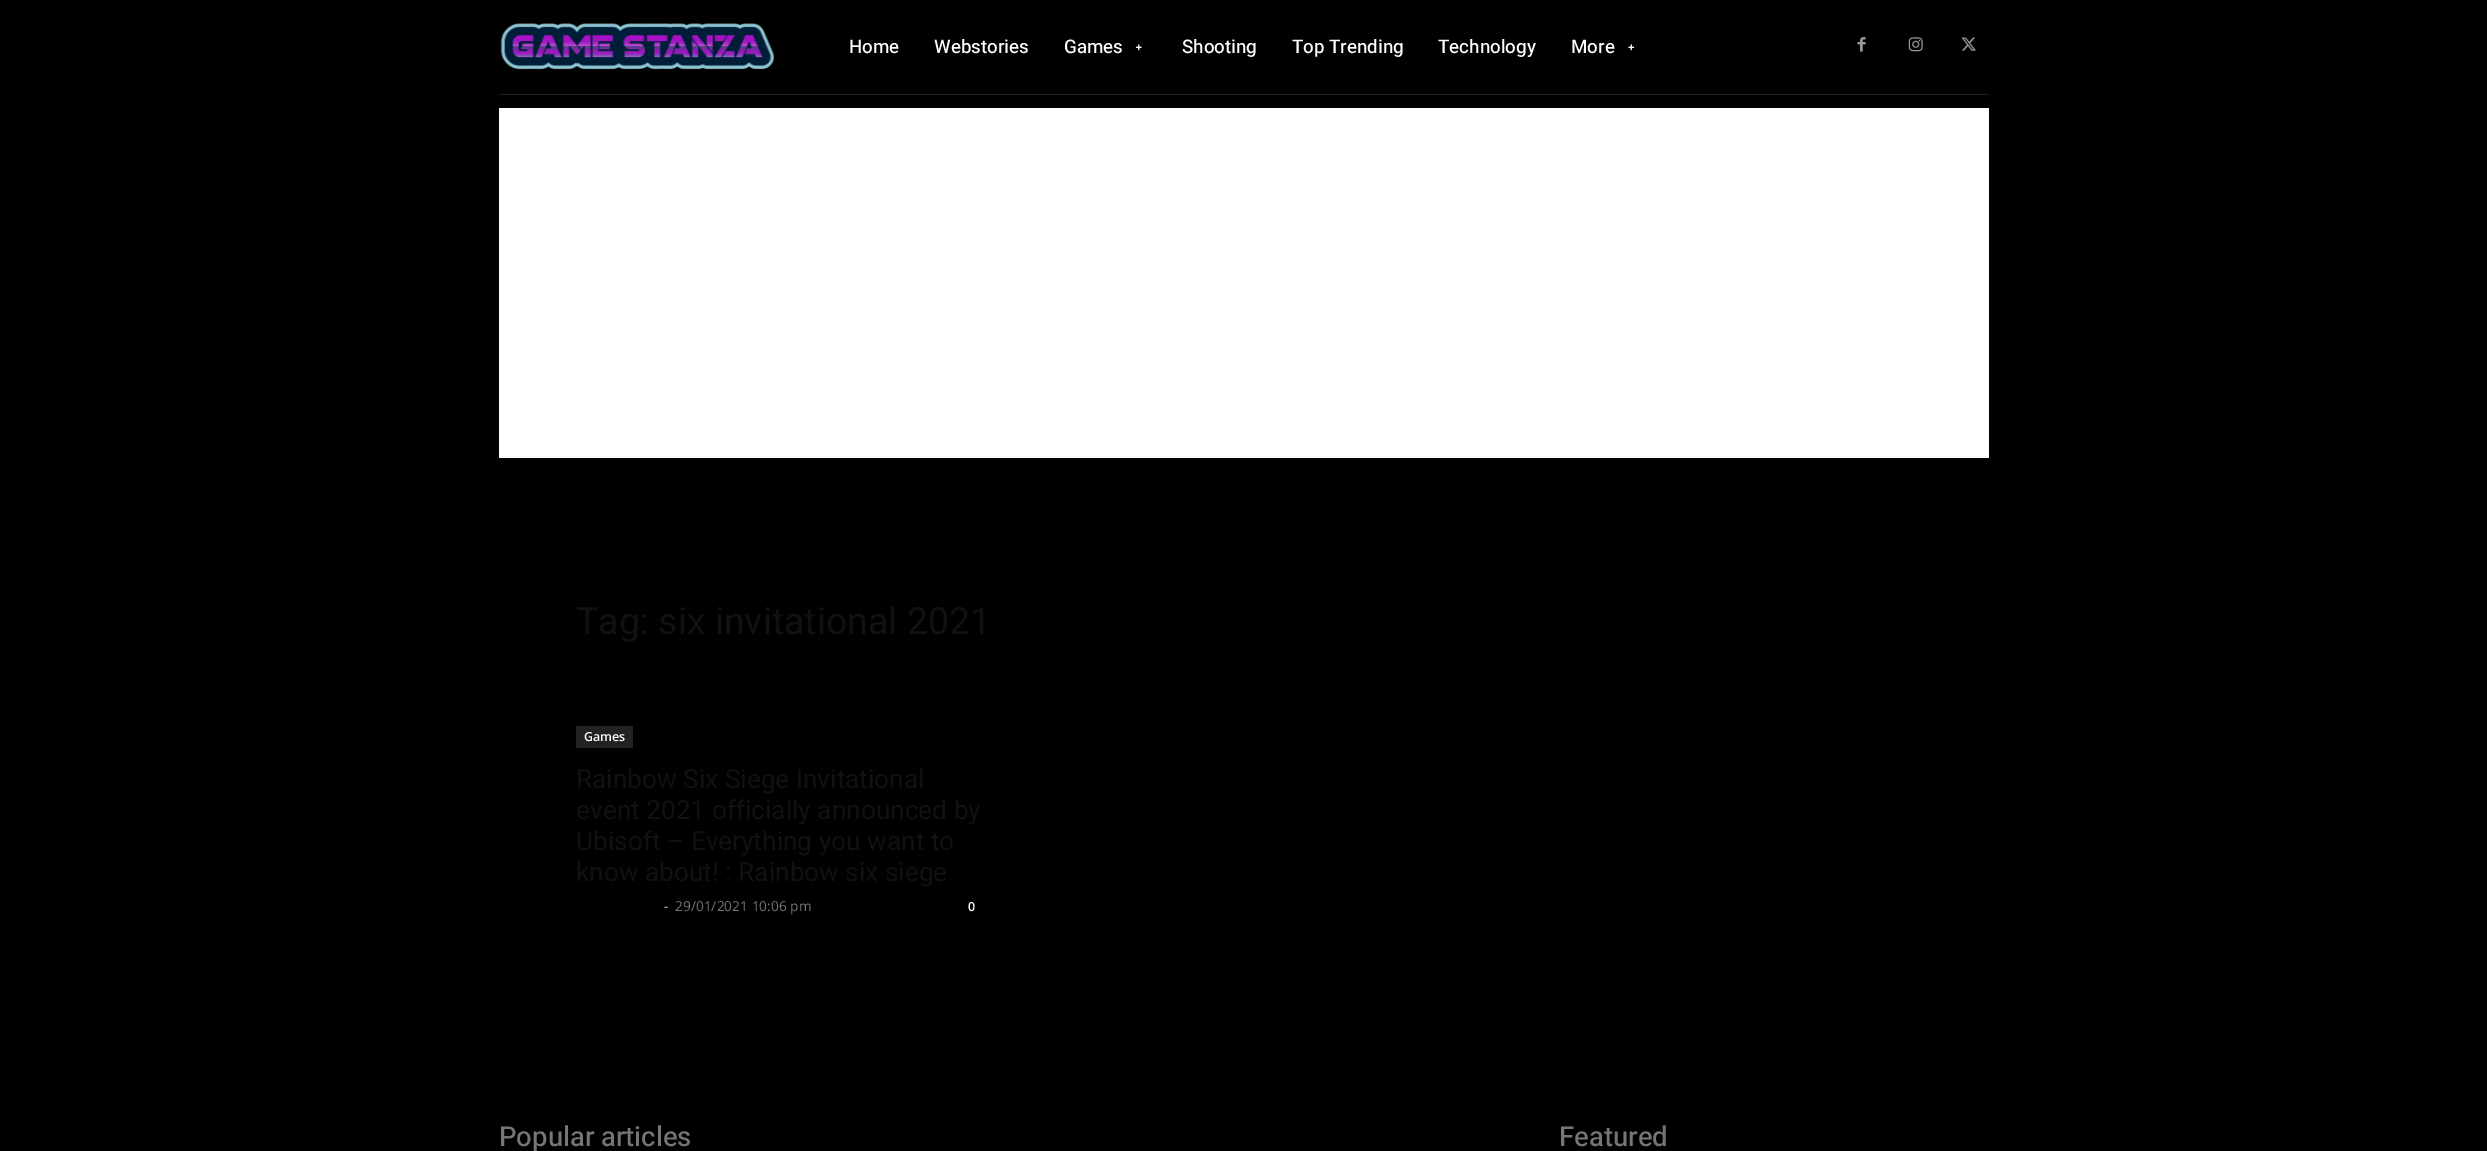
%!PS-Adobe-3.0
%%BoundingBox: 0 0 2487 1151
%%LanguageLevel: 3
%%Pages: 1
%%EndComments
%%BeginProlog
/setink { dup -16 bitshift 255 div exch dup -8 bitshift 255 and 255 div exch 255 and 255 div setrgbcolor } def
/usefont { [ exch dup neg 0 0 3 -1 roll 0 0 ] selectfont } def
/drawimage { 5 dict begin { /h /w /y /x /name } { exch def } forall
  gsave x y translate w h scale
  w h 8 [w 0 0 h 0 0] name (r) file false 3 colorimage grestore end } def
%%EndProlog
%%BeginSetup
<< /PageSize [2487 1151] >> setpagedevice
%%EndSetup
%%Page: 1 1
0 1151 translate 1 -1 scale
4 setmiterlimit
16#000000 setink
0 0 2487 1151 rectfill
(img1.raw) 500 23 274 47 drawimage
/Heebo-Medium 18.75 usefont
16#FFFFFF setink
[
    [(Home) 849 53]
    [(Webstories) 934 53]
    [(Games) 1064 53]
] { aload pop moveto show } forall
(img2.raw) 1135 44 7 7 drawimage
[
    [(Shooting) 1182 53]
    [(Top Trending) 1292 53]
    [(Technology) 1438 53]
    [(More) 1571 53]
] { aload pop moveto show } forall
(img3.raw) 1628 44 7 7 drawimage
(img4.raw) 1857 37 9 15 drawimage
(img5.raw) 1908 37 15 15 drawimage
(img6.raw) 1961 37 15 14 drawimage
16#1F1E1E setink
499 94 1490 1 rectfill
16#FFFFFF setink
499 108 1490 350 rectfill
/Roboto-Regular 37.5 usefont
16#111111 setink
576 634 moveto (Tag: six invitational 2021) show
16#222222 setink
576 726 57 22 rectfill
/OpenSans-SemiBold 12.5 usefont
16#FFFFFF setink
584 741 moveto (Games) show
/Roboto-Regular 26.25 usefont
16#111111 setink
[
    [(Rainbow Six Siege Invitational) 576 788]
    [(event 2021 officially announced by) 576 819]
    [(Ubisoft – Everything you want to) 576 850]
    [(know about! : Rainbow six siege) 576 881]
] { aload pop moveto show } forall
/OpenSans-Regular 13.75 usefont
16#CCCCCC setink
664 911 moveto (-) show
16#767676 setink
675 911 moveto (29/01/2021 10:06 pm) show
/OpenSans-SemiBold 12.5 usefont
16#FFFFFF setink
968 911 moveto (0) show
/Heebo-Medium 27.5 usefont
16#767676 setink
499 1146 moveto (Popular articles) show
1559 1146 moveto (Featured) show
showpage
%%EOF
